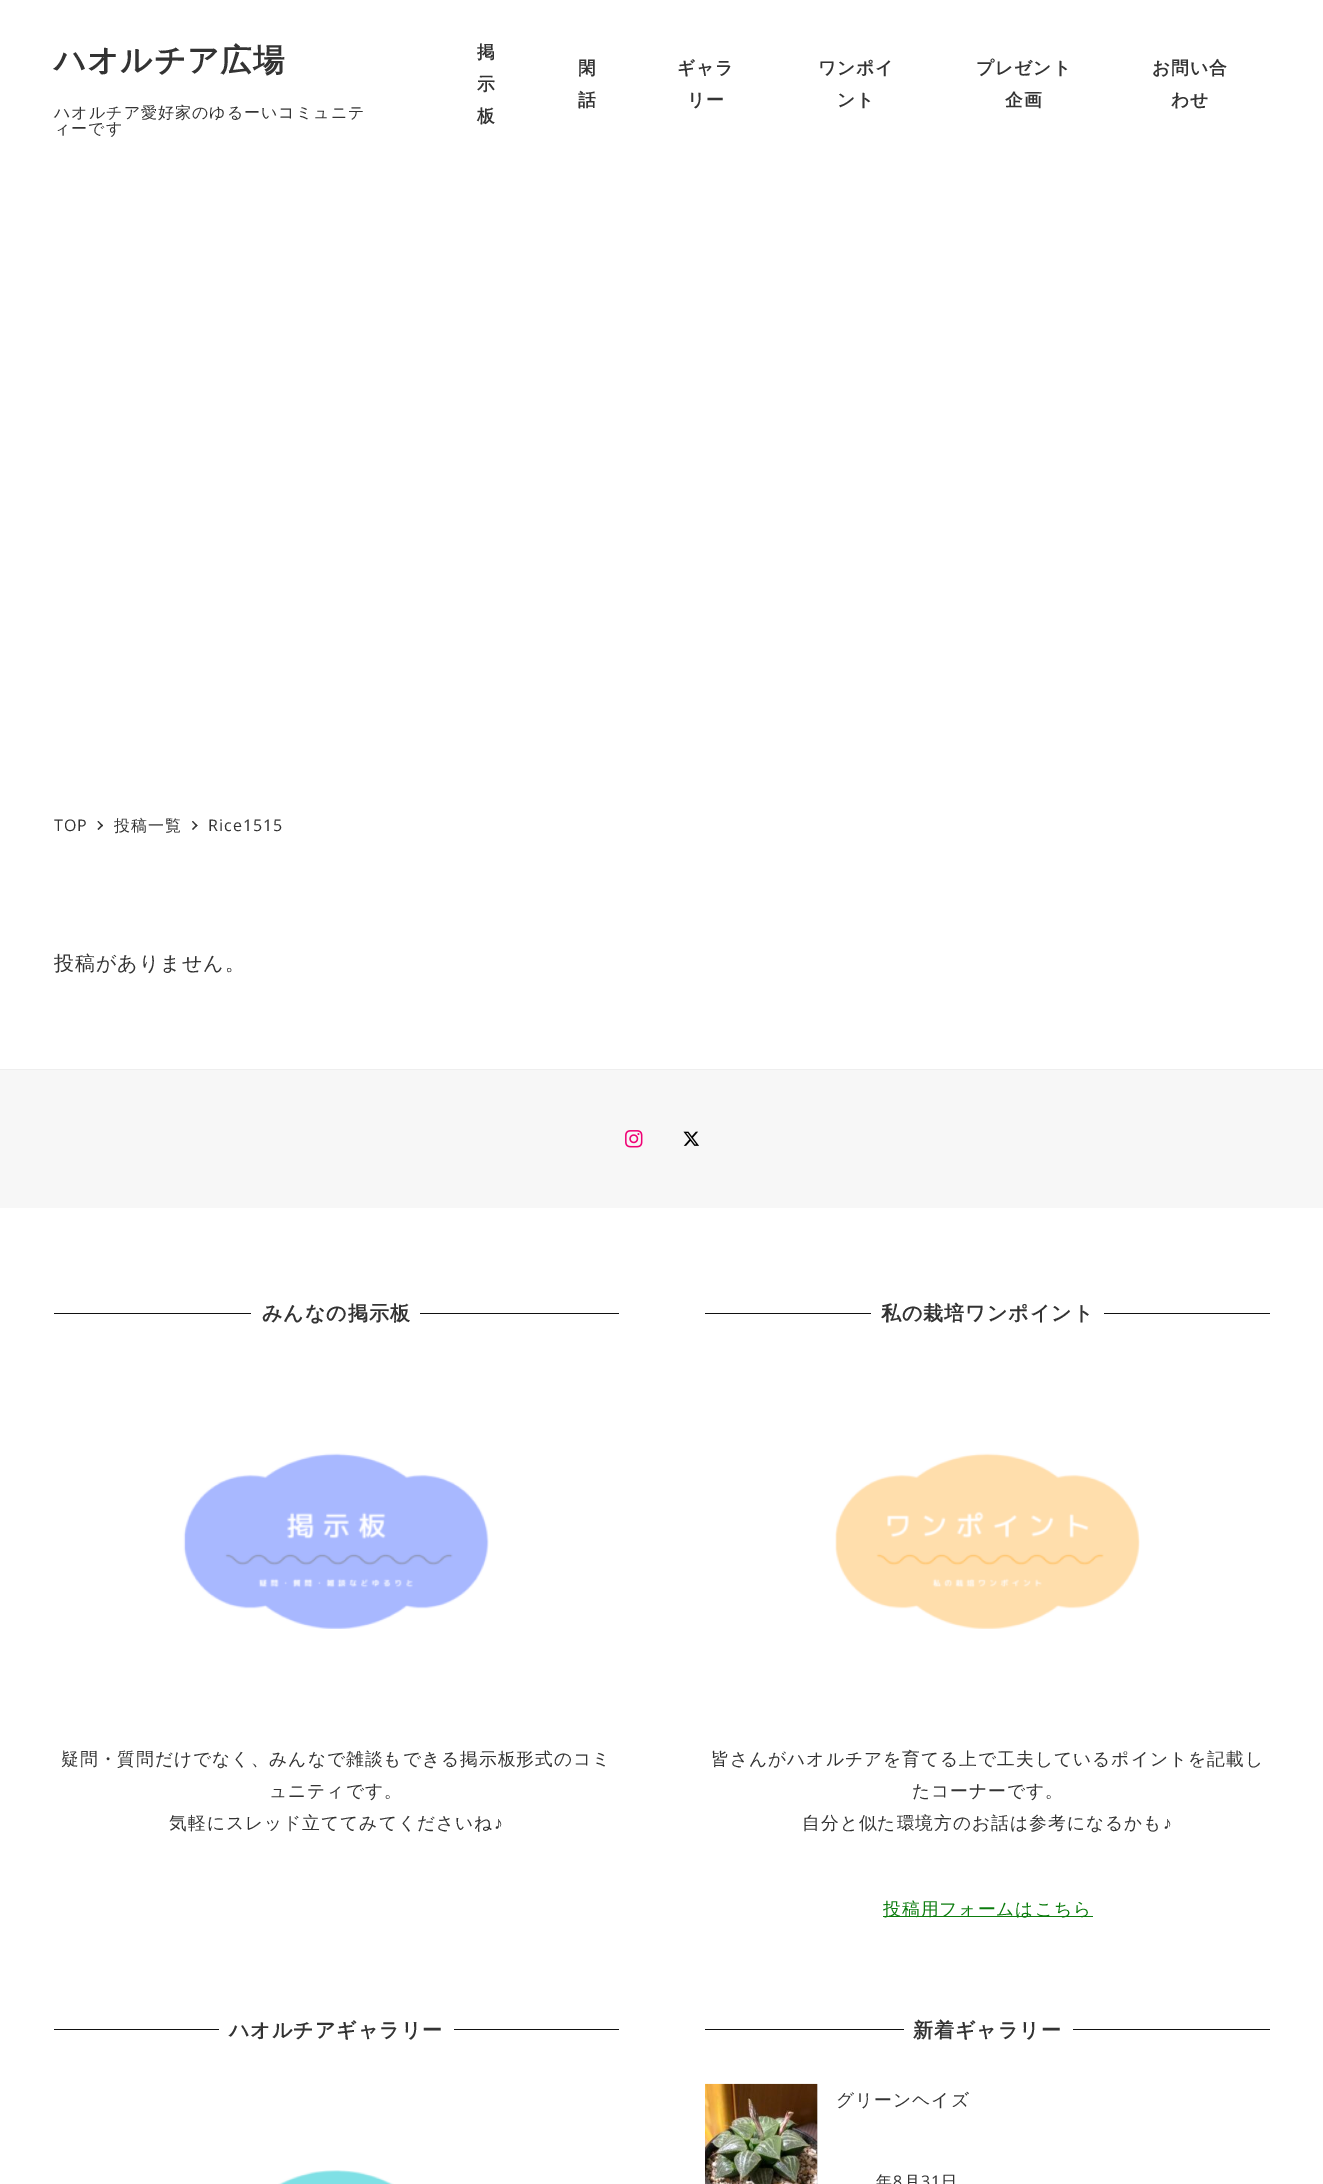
%!PS-Adobe-3.0
%%BoundingBox: 0 0 1323 2184
%%LanguageLevel: 3
%%Pages: 1
%%EndComments
%%BeginProlog
/setink { dup -16 bitshift 255 div exch dup -8 bitshift 255 and 255 div exch 255 and 255 div setrgbcolor } def
/usefont { [ exch dup neg 0 0 3 -1 roll 0 0 ] selectfont } def
/drawimage { 5 dict begin { /h /w /y /x /name } { exch def } forall
  gsave x y translate w h scale
  w h 8 [w 0 0 h 0 0] name (r) file false 3 colorimage grestore end } def
%%EndProlog
%%BeginSetup
<< /PageSize [1323 2184] >> setpagedevice
%%EndSetup
%%Page: 1 1
0 2184 translate 1 -1 scale
4 setmiterlimit
16#FFFFFF setink
0 0 1323 2184 rectfill
/WenQuanYiZenHei-Bold 31.5 usefont
16#333333 setink
54 71 moveto 1 0 (ハオルチア広場) ashow
/WenQuanYiZenHei-Medium 16 usefont
54 118 moveto 1 0 (ハオルチア愛好家のゆるーいコミュニテ) ashow
54 134 moveto 1 0 (ィーです) ashow
/WenQuanYiZenHei-Bold 17.75 usefont
477 58 moveto 1 0 (掲) ashow
477 90 moveto 1 0 (示) ashow
477 122 moveto 1 0 (板) ashow
578 74 moveto 1 0 (閑) ashow
578 106 moveto 1 0 (話) ashow
677 74 moveto 1 0 (ギャラ) ashow
687 106 moveto 1 0 (リー) ashow
818 74 moveto 1 0 (ワンポイ) ashow
837 106 moveto 1 0 (ント) ashow
976 74 moveto 1 0 (プレゼント) ashow
1005 106 moveto 1 0 (企画) ashow
1152 74 moveto 1 0 (お問い合) ashow
1171 106 moveto 1 0 (わせ) ashow
/OpenSans-Regular 16 usefont
54 831 moveto 1 0 (TOP) ashow
98.5 821 moveto 103 825.5 lineto 102 826.5 lineto 97.5 821.5 lineto closepath fill
102 824.5 moveto 103 825.5 lineto 98.5 830 lineto 97.5 829 lineto closepath fill
/WenQuanYiZenHei-Medium 16 usefont
114 831 moveto 1 0 (投稿一覧) ashow
193 821 moveto 197.5 825.5 lineto 196.5 826.5 lineto 192 821.5 lineto closepath fill
196.5 824.5 moveto 197.5 825.5 lineto 193 830 lineto 192 829 lineto closepath fill
/OpenSans-Regular 16 usefont
208 831 moveto 1 0 (Rice1515) ashow
/WenQuanYiZenHei-Medium 20 usefont
54 970 moveto 1 0 (投稿がありません。) ashow
16#EEEEEE setink
0 1069 1323 1 rectfill
16#F7F7F7 setink
0 1070 1323 138 rectfill
(img1.raw) 625 1130 18 18 drawimage
(img2.raw) 683 1131 16 15 drawimage
16#111111 setink
54 1313 197 1 rectfill
/WenQuanYiZenHei-Bold 20 usefont
16#333333 setink
262 1320 moveto 1 0 (みんなの掲示板) ashow
16#111111 setink
420 1313 199 1 rectfill
(img3.raw) 183 1453 306 176 drawimage
/WenQuanYiZenHei-Medium 17.75 usefont
16#333333 setink
61 1765 moveto 1 0 (疑問・質問だけでなく、みんなで雑談もできる掲示板形式のコミ) ashow
269 1797 moveto 1 0 (ュニティです。) ashow
169 1829 moveto 1 0 (気軽にスレッド立ててみてくださいね) ashow
/LiberationSans-Regular 17.75 usefont
494 1829 moveto 1 0 (♪) ashow
16#111111 setink
705 1313 166 1 rectfill
/WenQuanYiZenHei-Bold 20 usefont
16#333333 setink
881 1320 moveto 1 0 (私の栽培ワンポイント) ashow
16#111111 setink
1104 1313 166 1 rectfill
(img4.raw) 835 1453 305 176 drawimage
/WenQuanYiZenHei-Medium 17.75 usefont
16#333333 setink
711 1765 moveto 1 0 (皆さんがハオルチアを育てる上で工夫しているポイントを記載し) ashow
912 1797 moveto 1 0 (たコーナーです。) ashow
802 1829 moveto 1 0 (自分と似た環境方のお話は参考になるかも) ashow
/LiberationSans-Regular 17.75 usefont
1163 1829 moveto 1 0 (♪) ashow
16#0B7C0D setink
883 1916 210 1 rectfill
/WenQuanYiZenHei-Medium 17.75 usefont
883 1915 moveto 1 0 (投稿用フォームはこちら) ashow
16#111111 setink
54 2029 165 1 rectfill
/WenQuanYiZenHei-Bold 20 usefont
16#333333 setink
229 2037 moveto 1 0 (ハオルチアギャラリー) ashow
16#111111 setink
454 2029 165 1 rectfill
(img5.raw) 278 2170 116 14 drawimage
705 2029 199 1 rectfill
16#333333 setink
913 2037 moveto 1 0 (新着ギャラリー) ashow
16#111111 setink
1073 2029 197 1 rectfill
16#EEEEEE setink
817 2084 1 100 rectfill
(img6.raw) 705 2083 113 101 drawimage
/WenQuanYiZenHei-Medium 17.75 usefont
16#333333 setink
836 2106 moveto 1 0 (グリーンヘイズ) ashow
/WenQuanYiZenHei-Medium 16 usefont
876 2187 moveto 1 0 (年) ashow
/OpenSans-Regular 16 usefont
893 2187 moveto 1 0 (8) ashow
/WenQuanYiZenHei-Medium 16 usefont
904 2187 moveto 1 0 (月) ashow
/OpenSans-Regular 16 usefont
921 2187 moveto 1 0 (31) ashow
/WenQuanYiZenHei-Medium 16 usefont
941 2187 moveto 1 0 (日) ashow
showpage
%%EOF
